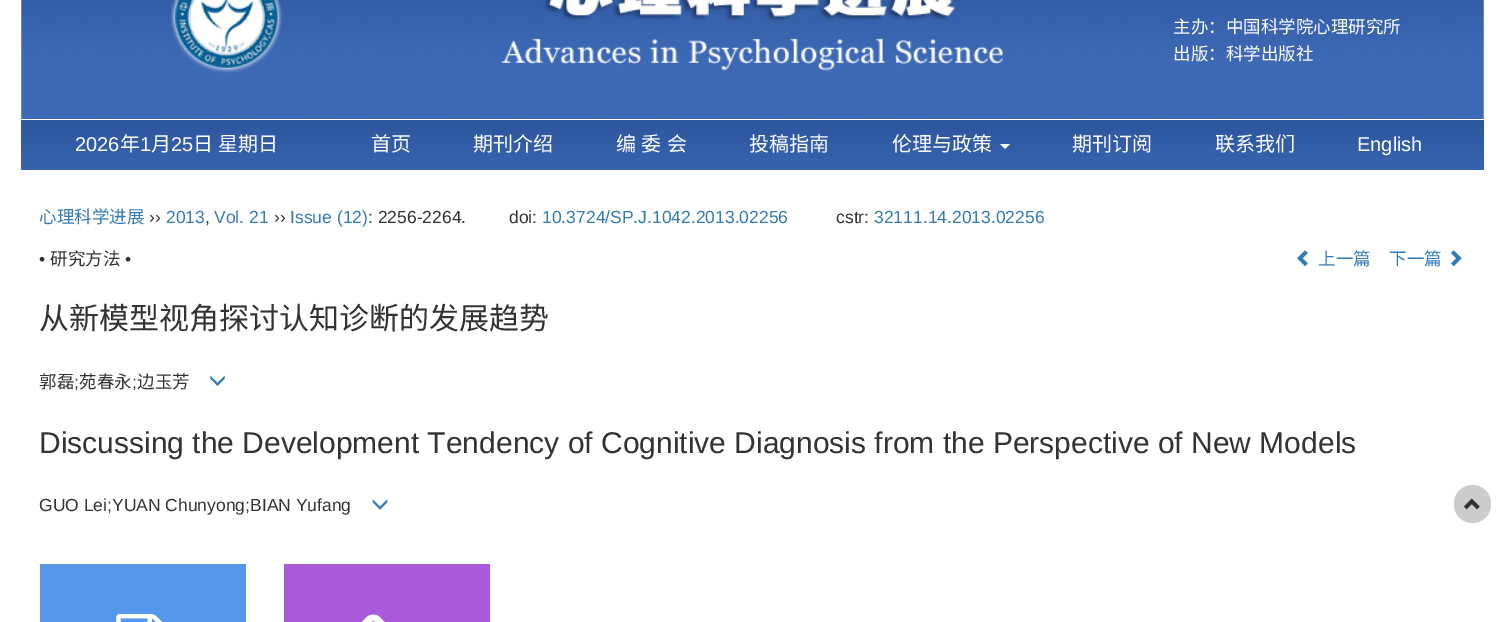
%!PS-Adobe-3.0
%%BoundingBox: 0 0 1503 622
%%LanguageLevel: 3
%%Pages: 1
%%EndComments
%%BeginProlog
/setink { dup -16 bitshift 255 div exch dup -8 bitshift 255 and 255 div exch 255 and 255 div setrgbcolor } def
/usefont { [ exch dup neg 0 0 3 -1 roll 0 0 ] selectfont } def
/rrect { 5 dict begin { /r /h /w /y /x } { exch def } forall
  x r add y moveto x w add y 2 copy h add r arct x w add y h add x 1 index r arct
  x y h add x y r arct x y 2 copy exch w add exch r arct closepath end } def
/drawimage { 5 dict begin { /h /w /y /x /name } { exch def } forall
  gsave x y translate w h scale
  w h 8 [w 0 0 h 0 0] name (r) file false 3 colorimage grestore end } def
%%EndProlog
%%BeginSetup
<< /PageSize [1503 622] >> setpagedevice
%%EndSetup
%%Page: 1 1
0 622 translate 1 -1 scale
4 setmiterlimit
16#FFFFFF setink
0 0 1503 622 rectfill
(img1.raw) 21 0 1463 119 drawimage
(img2.raw) 170 0 113 73 drawimage
(img3.raw) 501 0 503 71 drawimage
/NotoSansCJKSC-Regular 17.5 usefont
1173 33 moveto (主办：中国科学院心理研究所) show
1173 60 moveto (出版：科学出版社) show
gsave 21 120 moveto 1484 120 lineto 1484 170 lineto 21 170 lineto closepath clip newpath
<< /ShadingType 2 /ColorSpace /DeviceRGB /Coords [753 170 753 120] /Extend [true true] /Function << /FunctionType 2 /Domain [0 1] /C0 [0.22 0.392 0.686] /C1 [0.173 0.337 0.62] /N 1 >> >> shfill grestore
/LiberationSans-Regular 20 usefont
75 151 moveto (2026) show
/NotoSansCJKSC-Regular 20 usefont
120 151 moveto (年) show
/LiberationSans-Regular 20 usefont
140 151 moveto (1) show
/NotoSansCJKSC-Regular 20 usefont
151 151 moveto (月) show
/LiberationSans-Regular 20 usefont
171 151 moveto (25) show
/NotoSansCJKSC-Regular 20 usefont
193 151 moveto 1 0 32 (日 星期日) widthshow
371 151 moveto (首页) show
473 151 moveto (期刊介绍) show
616 151 moveto 1 0 32 (编 委 会) widthshow
749 151 moveto (投稿指南) show
892 151 moveto (伦理与政策) show
1000 144 moveto 1010 144 lineto 1005 149 lineto closepath fill
1072 151 moveto (期刊订阅) show
1215 151 moveto (联系我们) show
/LiberationSans-Regular 20 usefont
1357 151 moveto (English) show
/NotoSansCJKSC-Regular 17.5 usefont
16#337AB7 setink
39 223 moveto (心理科学进展) show
/LiberationSans-Regular 17.5 usefont
16#333333 setink
149 223 moveto (››) show
16#337AB7 setink
166 223 moveto (2013) show
214 223 moveto (Vol. 21) show
16#333333 setink
274 223 moveto (››) show
16#337AB7 setink
290 223 moveto (Issue \(12\)) show
16#333333 setink
368 223 moveto (: 2256-2264.) show
509 223 moveto (doi:) show
16#337AB7 setink
542 223 moveto (10.3724/SP.J.1042.2013.02256) show
16#333333 setink
836 223 moveto (cstr:) show
16#337AB7 setink
874 223 moveto (32111.14.2013.02256) show
16#333333 setink
205 223 moveto (,) show
39 265 moveto (•) show
/NotoSansCJKSC-Regular 17.5 usefont
50 265 moveto (研究方法) show
/LiberationSans-Regular 17.5 usefont
125 265 moveto (•) show
(img4.raw) 1297 250 11 17 drawimage
/NotoSansCJKSC-Regular 17.5 usefont
16#337AB7 setink
1318 265 moveto (上一篇) show
1389 265 moveto (下一篇) show
(img5.raw) 1450 250 12 17 drawimage
/NotoSansCJKSC-Regular 30 usefont
16#333333 setink
39 329 moveto (从新模型视角探讨认知诊断的发展趋势) show
/NotoSansCJKSC-Regular 17.5 usefont
39 388 moveto (郭磊) show
/LiberationSans-Regular 17.5 usefont
74 388 moveto (;) show
/NotoSansCJKSC-Regular 17.5 usefont
79 388 moveto (苑春永) show
/LiberationSans-Regular 17.5 usefont
132 388 moveto (;) show
/NotoSansCJKSC-Regular 17.5 usefont
137 388 moveto (边玉芳) show
(img6.raw) 210 375 15 11 drawimage
/LiberationSans-Regular 30 usefont
39 453 moveto (Discussing the Development Tendency of Cognitive Diagnosis from the Perspective of New Models) show
/LiberationSans-Regular 17.5 usefont
39 511 moveto (GUO Lei;YUAN Chunyong;BIAN Yufang) show
(img7.raw) 372 499 16 11 drawimage
16#5497EB setink
40 564 206 58 rectfill
(img8.raw) 116 613 47 9 drawimage
16#A959DB setink
284 564 206 58 rectfill
(img9.raw) 361 614 24 8 drawimage
16#CCCCCC setink
1454 485 37 38 18.5 rrect fill
(img10.raw) 1463 498 17 12 drawimage
showpage
%%EOF
